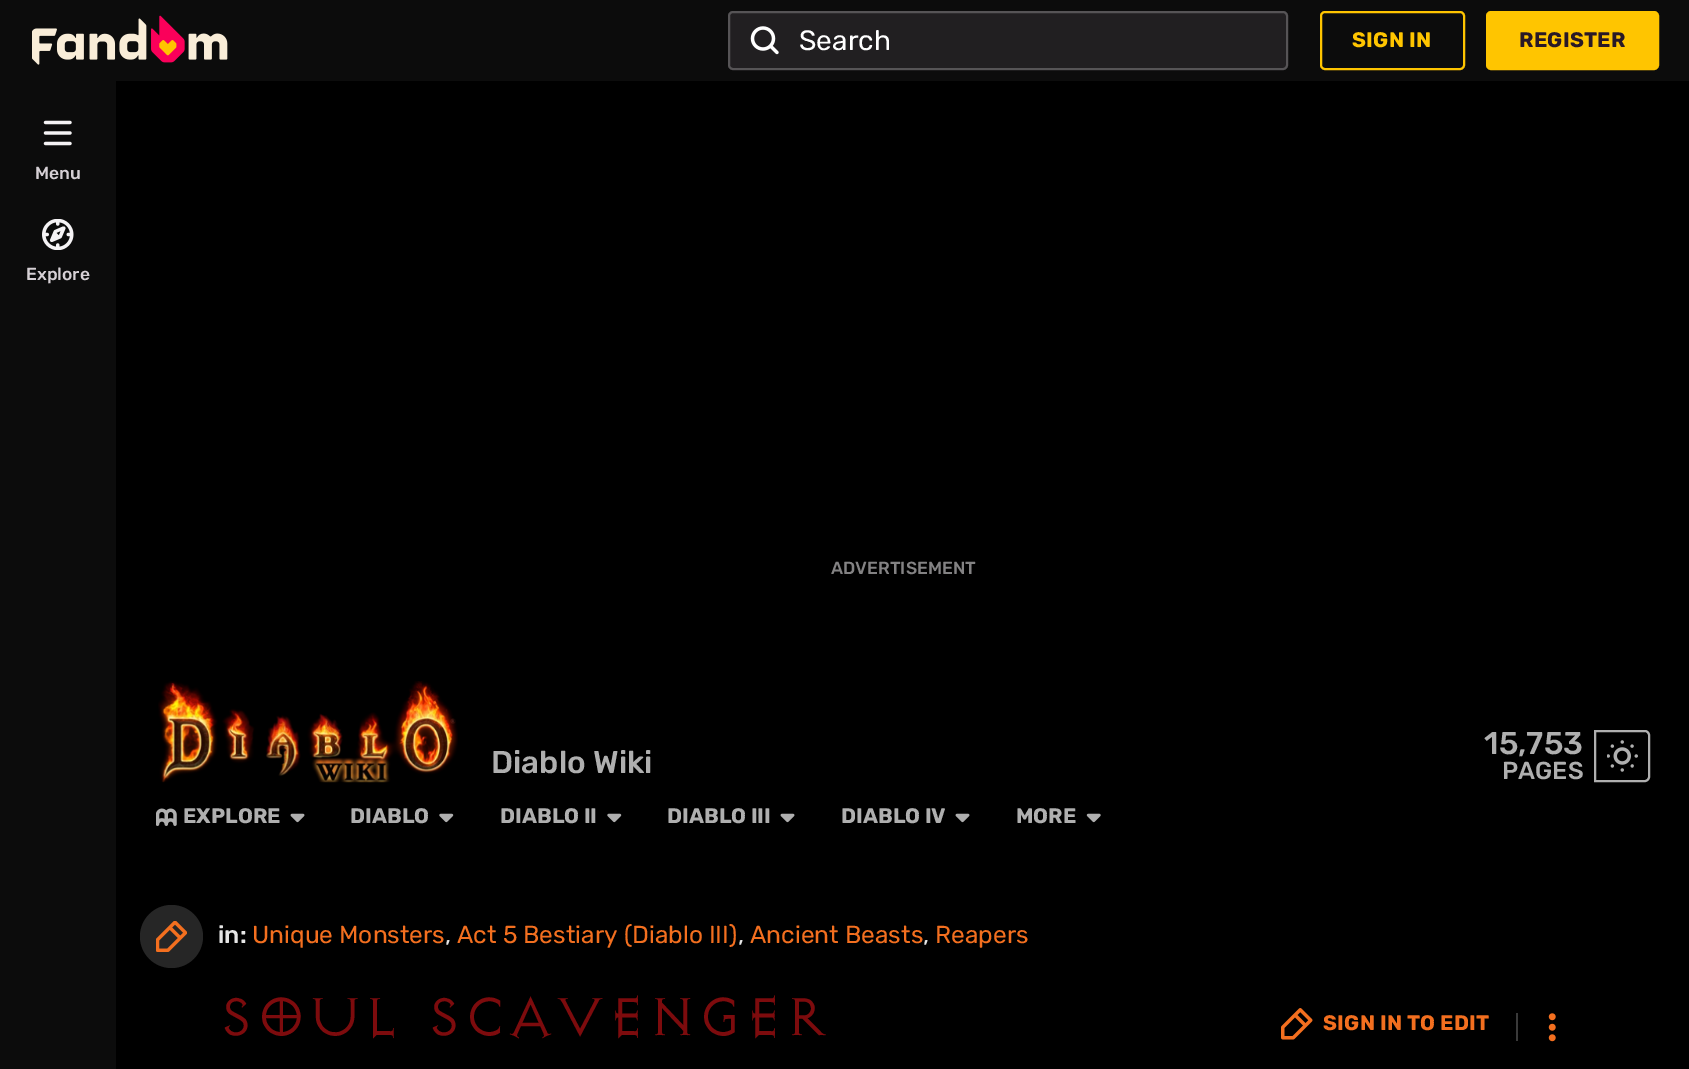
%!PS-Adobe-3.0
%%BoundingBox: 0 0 1689 1069
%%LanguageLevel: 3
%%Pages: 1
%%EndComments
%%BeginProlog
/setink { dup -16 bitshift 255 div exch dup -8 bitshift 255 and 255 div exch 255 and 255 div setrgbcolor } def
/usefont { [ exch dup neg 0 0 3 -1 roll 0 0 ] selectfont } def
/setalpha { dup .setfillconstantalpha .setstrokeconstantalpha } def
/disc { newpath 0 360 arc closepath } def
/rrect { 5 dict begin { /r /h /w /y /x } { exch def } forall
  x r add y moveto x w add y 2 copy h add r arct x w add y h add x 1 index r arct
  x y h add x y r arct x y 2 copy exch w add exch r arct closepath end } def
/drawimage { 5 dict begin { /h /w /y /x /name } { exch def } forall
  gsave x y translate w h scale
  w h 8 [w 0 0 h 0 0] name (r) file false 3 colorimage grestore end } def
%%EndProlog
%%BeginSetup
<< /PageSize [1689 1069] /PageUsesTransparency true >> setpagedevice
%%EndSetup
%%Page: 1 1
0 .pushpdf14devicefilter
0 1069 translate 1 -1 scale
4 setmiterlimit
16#000000 setink
0 0 1689 1069 rectfill
16#0C0C0C setink
0 0 1689 81 rectfill
(img1.raw) 32 15 196 50 drawimage
16#211F21 setink
728 11 560 59 5 rrect fill
0.25 setalpha
16#F5F3F5 setink
2 setlinewidth
729 12 558 57 4 rrect stroke
1 setalpha
(img2.raw) 750 26 29 29 drawimage
/Rubik-Regular 28 usefont
16#FFFFFF setink
799 50 moveto (Search) show
16#FFC500 setink
1321 12 143 57 4 rrect stroke
/Rubik-Bold 21 usefont
1352 47 moveto 0.25 0 (SIGN IN) ashow
1487 12 171 57 4 rrect gsave fill grestore
stroke
16#291927 setink
1519 47 moveto 0.25 0 (REGISTER) ashow
16#0C0C0C setink
0 81 116 988 rectfill
(img3.raw) 43 120 29 26 drawimage
/Rubik-Medium 17.5 usefont
16#D6D0D5 setink
35 179 moveto (Menu) show
(img4.raw) 42 219 32 31 drawimage
26 280 moveto (Explore) show
16#838283 setink
831 574 moveto (ADVERTISEMENT) show
(img5.raw) 158 681 300 102 drawimage
/Rubik-Medium 31.5 usefont
16#AFAFAF setink
491 773 moveto (Diablo Wiki) show
1484 754 moveto (15,753) show
/Rubik-Medium 24.5 usefont
1502 779 moveto (PAGES) show
1595 731 moveto 1645 731 lineto 1647 731 1649 733 1649 735 curveto 1649 777 lineto 1649 779 1647 781 1645 781 curveto 1595 781 lineto closepath stroke
(img6.raw) 1607 740 31 32 drawimage
(img7.raw) 156 808 21 18 drawimage
/Rubik-Bold 21 usefont
183 823 moveto (EXPLORE) show
(img8.raw) 290 813 15 10 drawimage
350 823 moveto (DIABLO) show
(img9.raw) 439 813 15 10 drawimage
500 823 moveto (DIABLO II) show
(img9.raw) 607 813 15 10 drawimage
667 823 moveto (DIABLO III) show
(img8.raw) 780 813 15 10 drawimage
841 823 moveto (DIABLO IV) show
(img8.raw) 955 813 15 10 drawimage
1016 823 moveto (MORE) show
(img10.raw) 1086 813 15 10 drawimage
16#262626 setink
171.5 936.5 31.5 disc fill
(img11.raw) 156 921 31 31 drawimage
/Rubik-Medium 24.5 usefont
16#E6E6E6 setink
218 943 moveto (in:) show
/Rubik-Regular 24.5 usefont
16#F36F1F setink
252 943 moveto (Unique Monsters) show
16#E6E6E6 setink
445 943 moveto (,) show
16#F36F1F setink
457 943 moveto (Act 5 Bestiary \(Diablo III\)) show
16#E6E6E6 setink
738 943 moveto (,) show
16#F36F1F setink
750 943 moveto (Ancient Beasts) show
16#E6E6E6 setink
923 943 moveto (,) show
16#F36F1F setink
935 943 moveto (Reapers) show
/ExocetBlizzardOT-Light 63 usefont
16#7D0B0D setink
218 1035 moveto 0.5 0 (Soul Scavenger) ashow
(img12.raw) 1281 1008 32 32 drawimage
/Rubik-Bold 21 usefont
16#F36F1F setink
1323 1030 moveto 0.25 0 (SIGN IN TO EDIT) ashow
16#3A3A3A setink
1516 1013 2 28 rectfill
(img13.raw) 1548 1013 8 29 drawimage
.poppdf14devicefilter showpage
%%EOF
